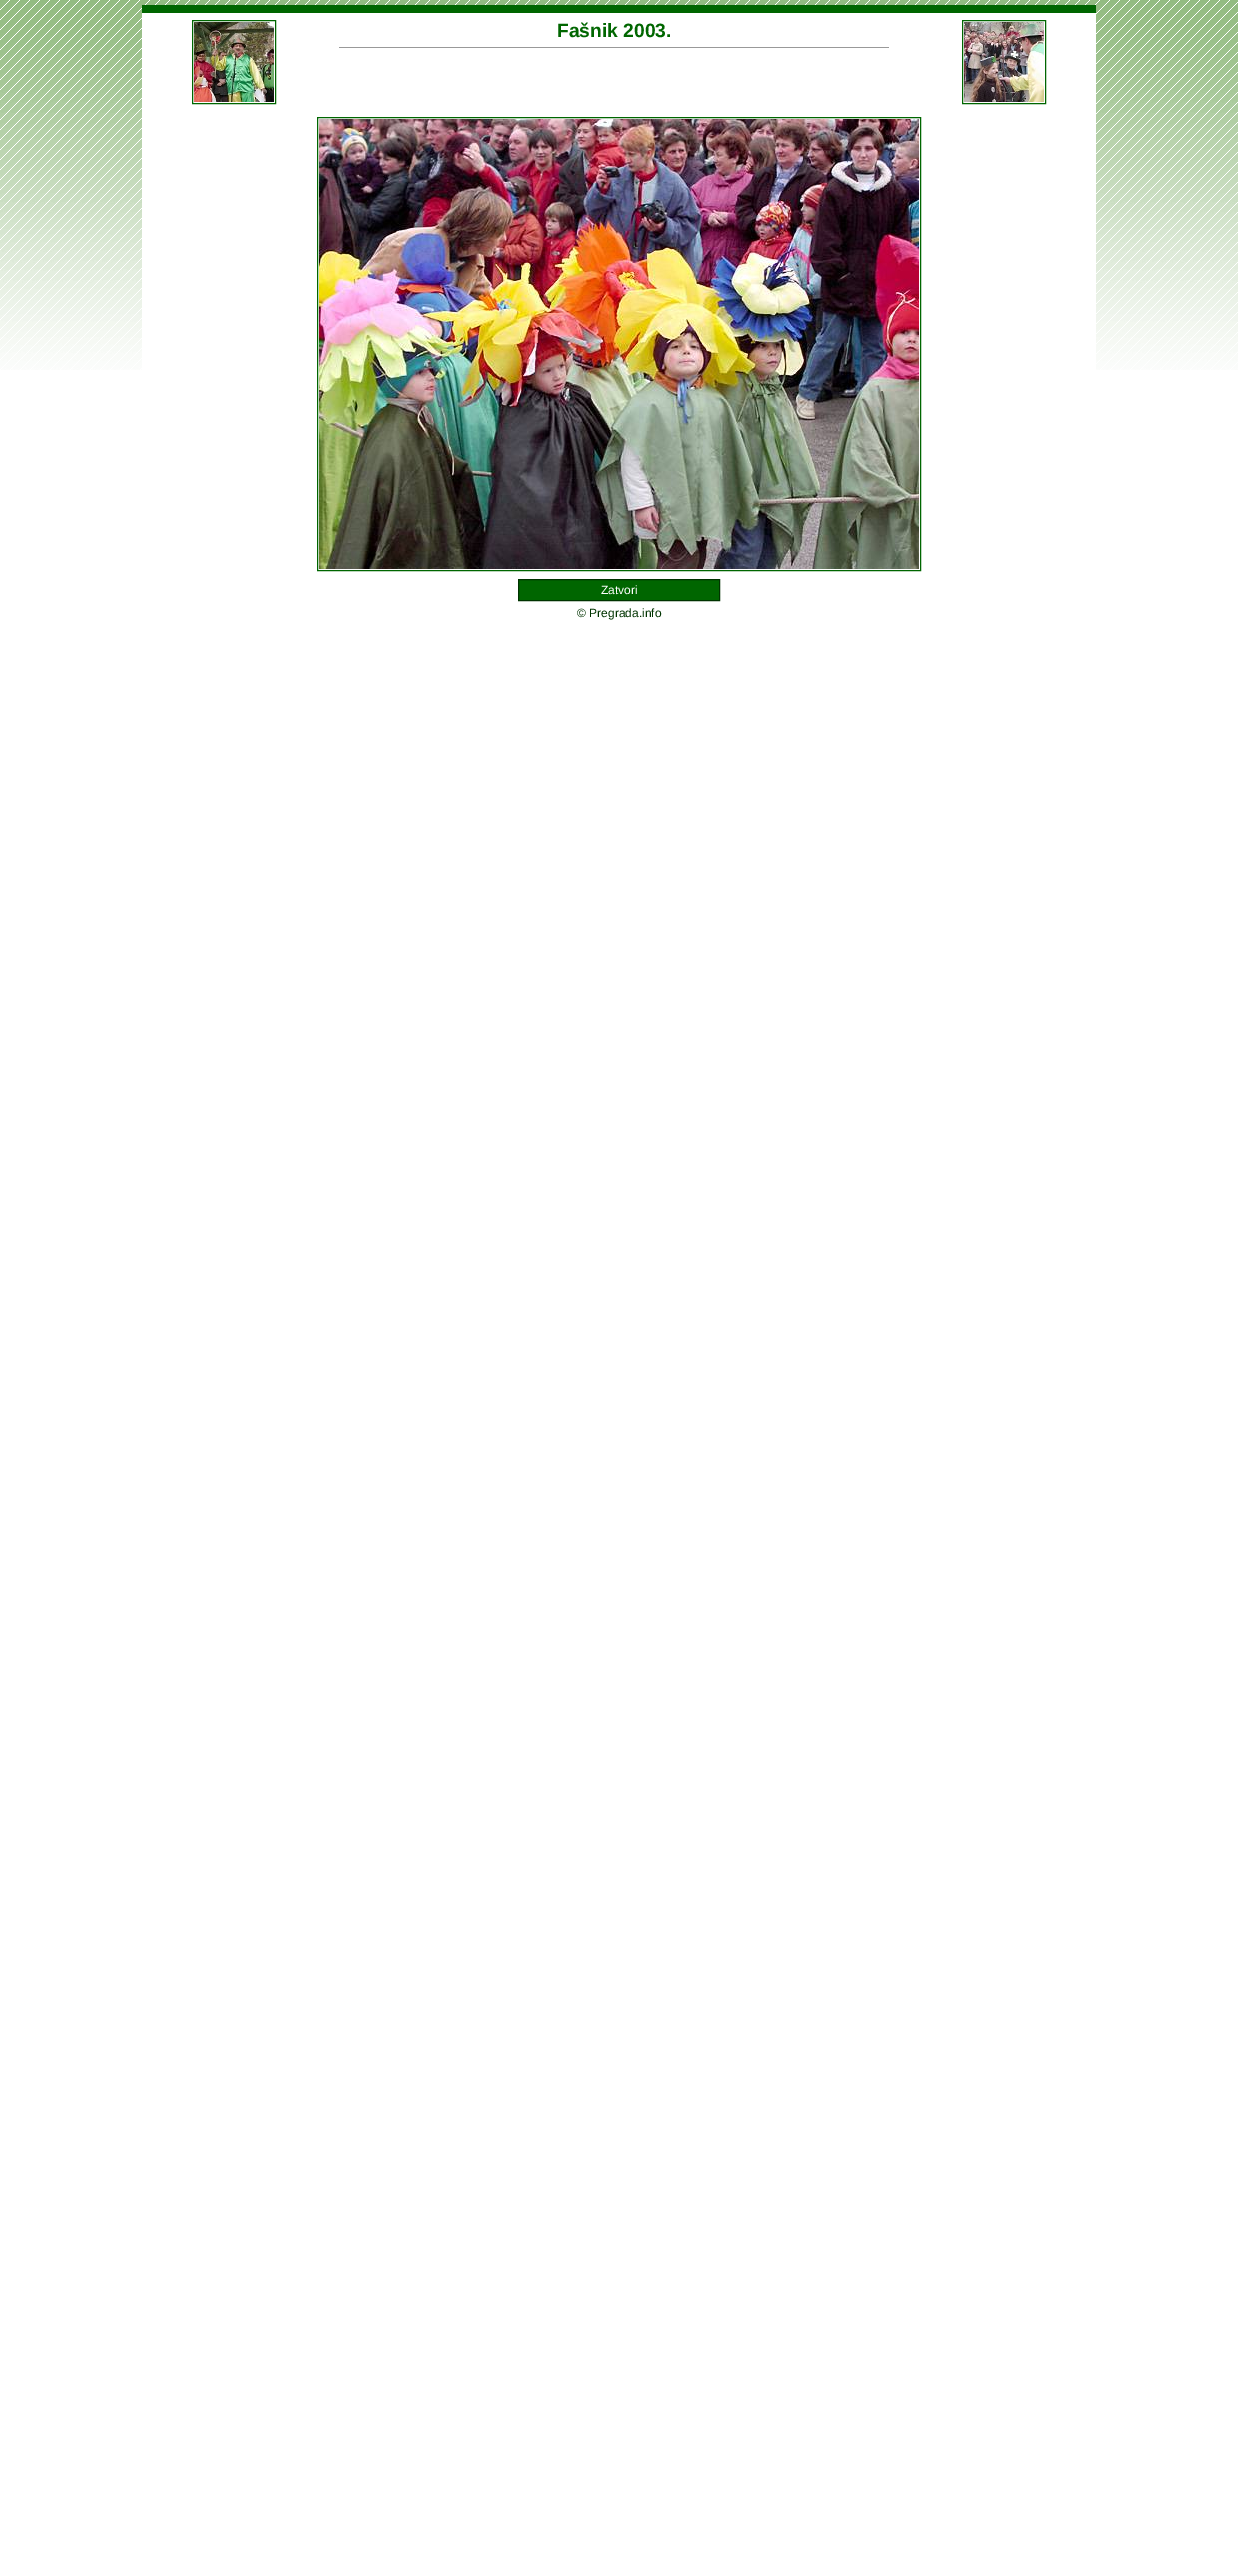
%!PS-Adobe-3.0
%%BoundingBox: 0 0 1238 2559
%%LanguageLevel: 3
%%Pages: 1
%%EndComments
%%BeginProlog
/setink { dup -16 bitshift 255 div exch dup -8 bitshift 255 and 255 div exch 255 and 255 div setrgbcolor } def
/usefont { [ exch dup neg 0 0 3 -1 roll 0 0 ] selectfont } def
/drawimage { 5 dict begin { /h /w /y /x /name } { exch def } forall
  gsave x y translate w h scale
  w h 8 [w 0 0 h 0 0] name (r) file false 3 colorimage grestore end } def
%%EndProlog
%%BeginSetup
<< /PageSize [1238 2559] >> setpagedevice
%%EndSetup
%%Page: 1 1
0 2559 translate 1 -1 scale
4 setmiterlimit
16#FFFFFF setink
0 0 1238 2559 rectfill
(img1.raw) 0 0 1238 370 drawimage
142 13 954 357 rectfill
16#006600 setink
142 5 954 8 rectfill
192.5 20.5 83 83 rectstroke
(img2.raw) 194 22 80 80 drawimage
16#999999 setink
339 47 550 1 rectfill
/LiberationSans-Bold 19.25 usefont
16#006600 setink
557 37 moveto (Fašnik 2003.) show
962.5 20.5 83 83 rectstroke
(img3.raw) 964 22 80 80 drawimage
317.5 117.5 603 453 rectstroke
(img4.raw) 319 119 600 450 drawimage
518.5 579.5 moveto 719.5 579.5 lineto 719.5 600.5 lineto 518.5 600.5 lineto closepath gsave fill grestore
16#003300 setink
stroke
/LiberationSans-Regular 12 usefont
16#FFFFFF setink
601 594 moveto (Zatvori) show
16#003300 setink
577 617 moveto (© Pregrada.info) show
showpage
%%EOF
